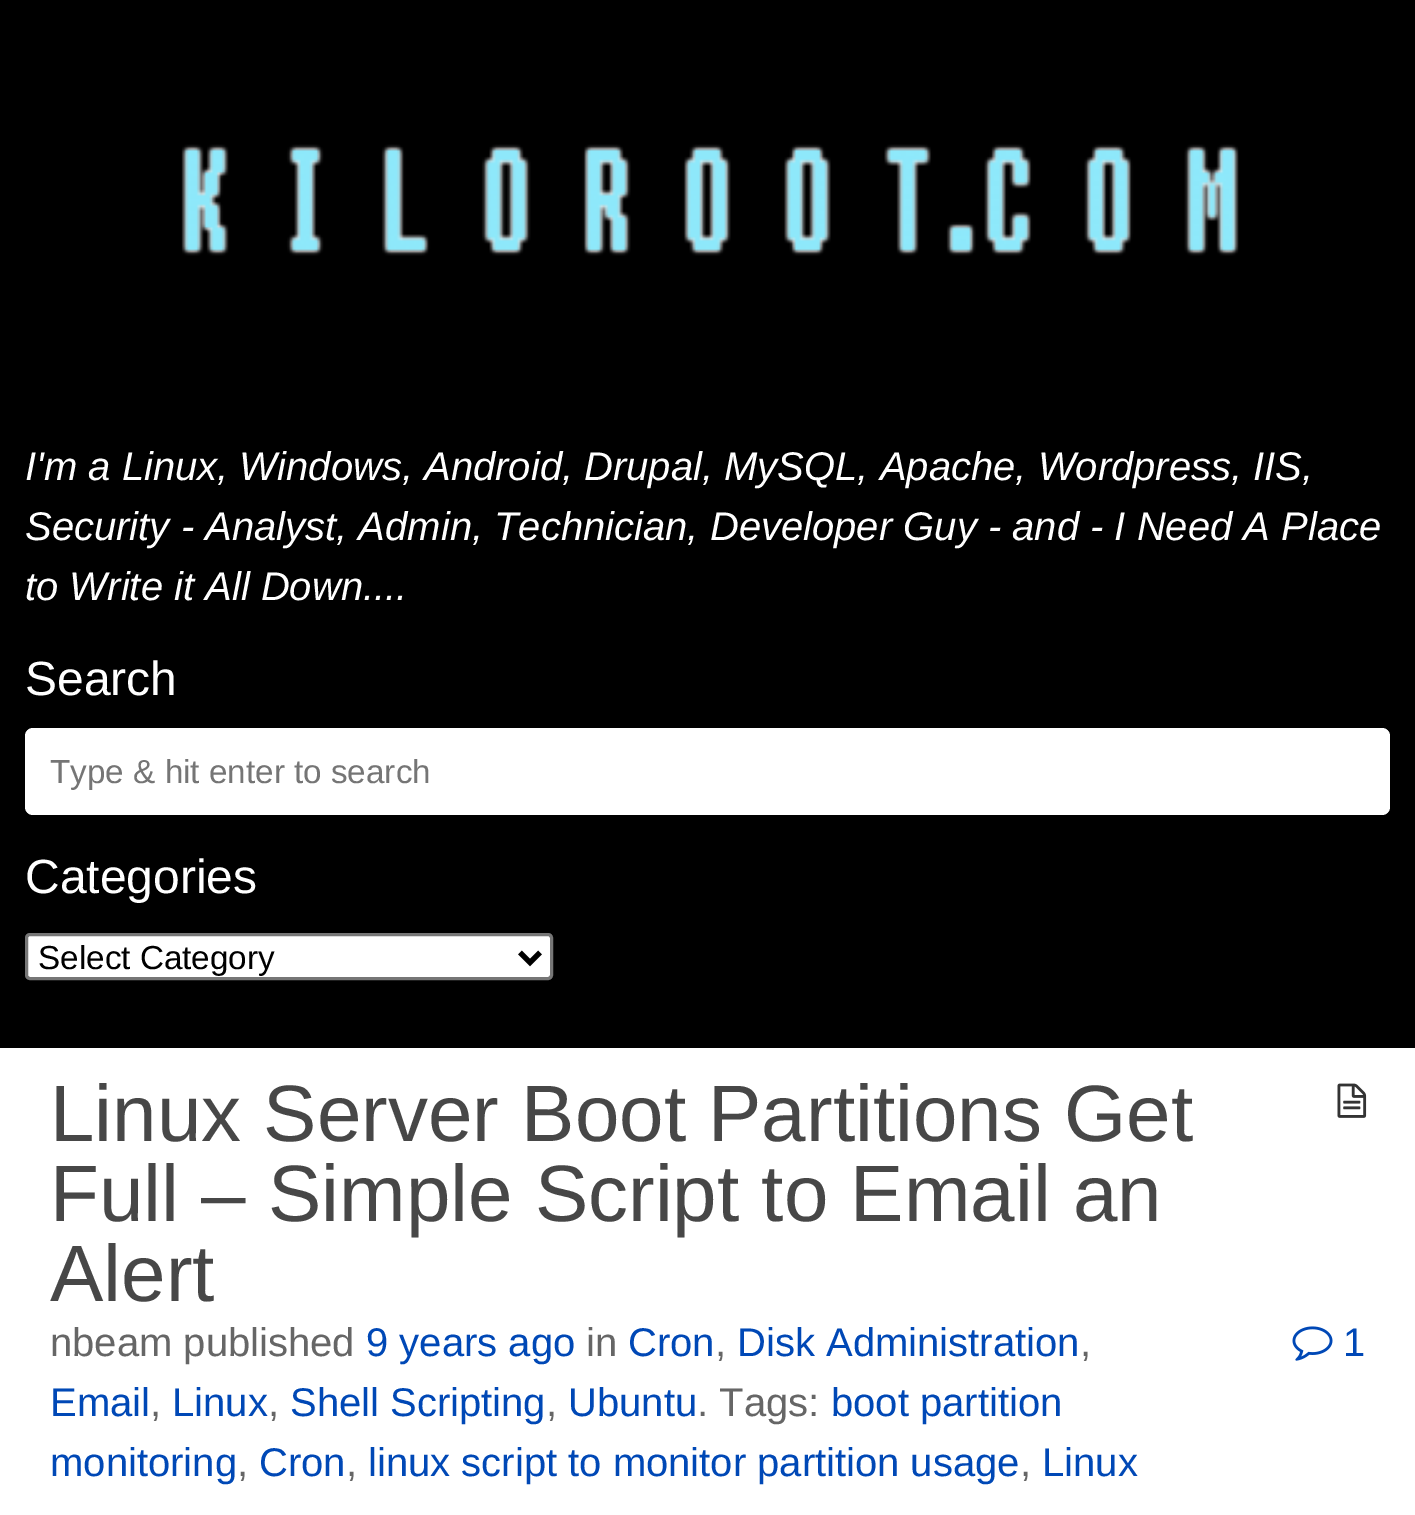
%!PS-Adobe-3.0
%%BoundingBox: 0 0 1415 1515
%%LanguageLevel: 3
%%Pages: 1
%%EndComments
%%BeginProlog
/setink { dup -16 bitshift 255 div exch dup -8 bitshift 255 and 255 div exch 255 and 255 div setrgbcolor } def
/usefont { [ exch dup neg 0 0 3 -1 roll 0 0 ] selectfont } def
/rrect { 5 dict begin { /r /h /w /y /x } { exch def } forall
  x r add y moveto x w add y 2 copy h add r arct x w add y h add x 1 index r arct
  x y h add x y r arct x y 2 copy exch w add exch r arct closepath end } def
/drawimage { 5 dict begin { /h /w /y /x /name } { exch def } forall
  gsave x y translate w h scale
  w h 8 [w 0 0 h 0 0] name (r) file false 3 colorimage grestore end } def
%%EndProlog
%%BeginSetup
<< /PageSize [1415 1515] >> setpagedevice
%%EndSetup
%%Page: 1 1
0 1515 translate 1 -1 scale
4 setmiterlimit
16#000000 setink
0 0 1415 1515 rectfill
(img1.raw) 181 144 1058 112 drawimage
/LiberationSans-Italic 40 usefont
16#FFFFFF setink
[
    [(I'm a Linux, Windows, Android, Drupal, MySQL, Apache, Wordpress, IIS,) 25 480]
    [(Security - Analyst, Admin, Technician, Developer Guy - and - I Need A Place) 25 540]
    [(to Write it All Down....) 25 600]
] { aload pop moveto show } forall
/LiberationSans-Regular 48 usefont
25 695 moveto (Search) show
25 728 1365 87 8 rrect fill
/LiberationSans-Regular 33.25 usefont
16#757575 setink
50 783 moveto (Type & hit enter to search) show
/LiberationSans-Regular 48 usefont
16#FFFFFF setink
25 893 moveto (Categories) show
26.5 934.5 525 44 3.5 rrect gsave fill grestore
16#767676 setink
3 setlinewidth
stroke
16#000000 setink
5 setlinewidth
520 952.5 moveto 530 962.5 lineto 540 952.5 lineto stroke
/LiberationSans-Regular 33.25 usefont
38 969 moveto (Select Category) show
16#FFFFFF setink
0 1048 1415 467 rectfill
/LiberationSans-Regular 80 usefont
16#474747 setink
[
    [(Linux Server Boot Partitions Get) 50 1141]
    [(Full – Simple Script to Email an) 50 1221]
    [(Alert) 50 1301]
] { aload pop moveto show } forall
(img2.raw) 1337 1083 30 35 drawimage
/LiberationSans-Regular 40 usefont
16#666666 setink
50 1356 moveto (nbeam published) show
16#0048B6 setink
366 1356 moveto (9 years ago) show
16#666666 setink
586 1356 moveto (in) show
16#0048B6 setink
628 1356 moveto (Cron) show
16#666666 setink
715 1356 moveto (,) show
16#0048B6 setink
737 1356 moveto (Disk Administration) show
16#666666 setink
1080 1356 moveto (,) show
16#0048B6 setink
50 1416 moveto (Email) show
16#666666 setink
150 1416 moveto (,) show
16#0048B6 setink
172 1416 moveto (Linux) show
16#666666 setink
268 1416 moveto (,) show
16#0048B6 setink
290 1416 moveto (Shell Scripting) show
16#666666 setink
546 1416 moveto (,) show
16#0048B6 setink
568 1416 moveto (Ubuntu) show
16#666666 setink
697 1416 moveto (. Tags:) show
16#0048B6 setink
831 1416 moveto (boot partition) show
50 1476 moveto (monitoring) show
16#666666 setink
237 1476 moveto (,) show
16#0048B6 setink
259 1476 moveto (Cron) show
16#666666 setink
346 1476 moveto (,) show
16#0048B6 setink
368 1476 moveto (linux script to monitor partition usage) show
16#666666 setink
1020 1476 moveto (,) show
16#0048B6 setink
1042 1476 moveto (Linux) show
(img3.raw) 1292 1326 41 35 drawimage
1343 1356 moveto (1) show
showpage
%%EOF
